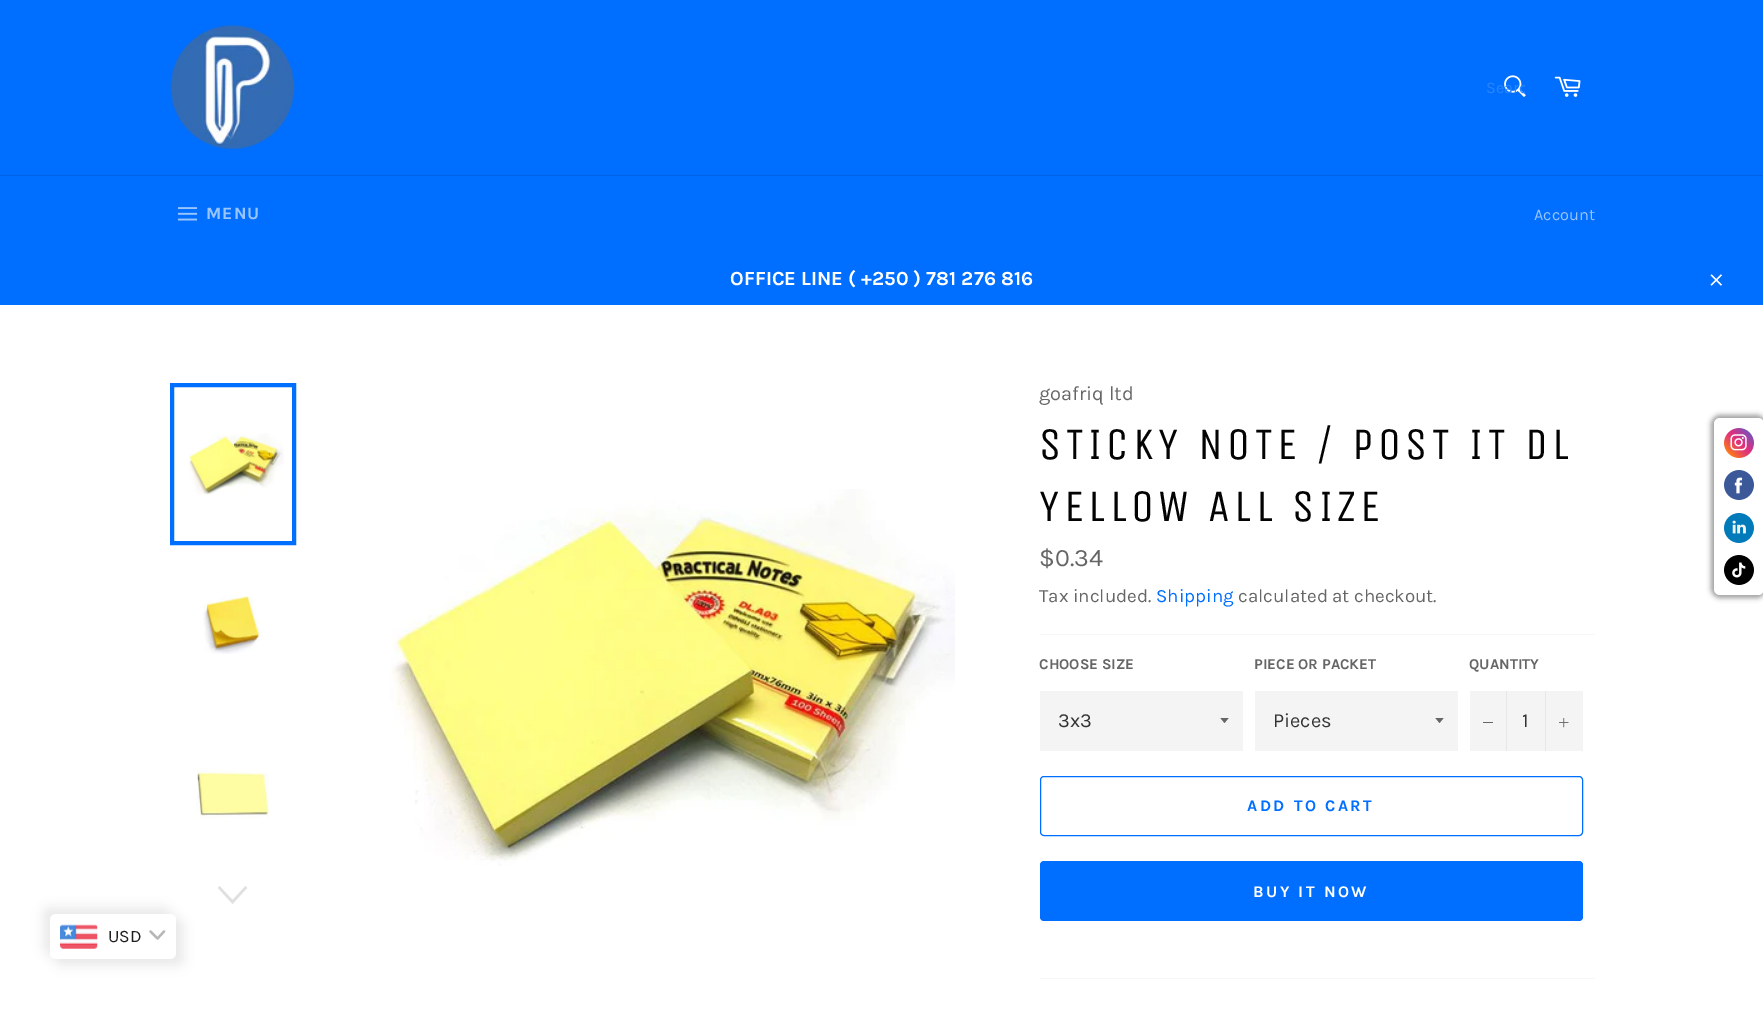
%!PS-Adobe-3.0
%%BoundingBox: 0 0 1763 1011
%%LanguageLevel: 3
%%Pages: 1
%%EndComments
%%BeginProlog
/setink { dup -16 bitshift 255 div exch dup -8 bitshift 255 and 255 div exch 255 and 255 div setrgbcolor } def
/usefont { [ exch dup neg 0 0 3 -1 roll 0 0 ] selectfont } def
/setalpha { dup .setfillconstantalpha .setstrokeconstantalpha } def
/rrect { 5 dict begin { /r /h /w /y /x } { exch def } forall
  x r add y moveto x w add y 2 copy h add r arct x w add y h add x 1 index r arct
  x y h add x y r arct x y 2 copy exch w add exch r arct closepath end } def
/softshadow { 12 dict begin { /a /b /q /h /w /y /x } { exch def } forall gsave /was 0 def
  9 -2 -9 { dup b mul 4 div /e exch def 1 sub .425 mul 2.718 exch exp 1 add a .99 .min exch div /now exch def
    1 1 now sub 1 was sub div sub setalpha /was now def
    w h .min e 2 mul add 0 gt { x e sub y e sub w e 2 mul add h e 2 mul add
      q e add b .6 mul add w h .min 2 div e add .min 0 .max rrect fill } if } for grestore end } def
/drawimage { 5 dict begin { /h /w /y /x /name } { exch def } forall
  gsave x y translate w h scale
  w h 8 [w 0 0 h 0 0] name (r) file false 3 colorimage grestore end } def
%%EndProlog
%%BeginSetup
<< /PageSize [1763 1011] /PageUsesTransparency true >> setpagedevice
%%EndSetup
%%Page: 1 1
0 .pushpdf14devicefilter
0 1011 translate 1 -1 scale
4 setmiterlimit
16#006EFF setink
0 0 1763 1011 rectfill
(img1.raw) 170 25 125 125 drawimage
(img2.raw) 1504 75 22 22 drawimage
gsave
1485 79 40 19 rectclip
/Karla-Regular 16.25 usefont
16#2885FF setink
1486 93 moveto (Searc) show
grestore
(img3.raw) 1554 76 27 21 drawimage
16#0063E6 setink
0 175 1763 1 rectfill
(img4.raw) 177 207 21 14 drawimage
/Karla-Bold 17.5 usefont
16#99C5FF setink
206 219 moveto 1 0 (MENU) ashow
/Karla-Regular 16.25 usefont
1534 220 moveto (Account) show
/Karla-Bold 20 usefont
16#FFFFFF setink
730 285 moveto (OFFICE LINE \( +250 \) 781 276 816) show
(img5.raw) 1710 274 12 12 drawimage
0 305 1763 706 rectfill
(img6.raw) 189 433 95 62 drawimage
16#006EFF setink
4 setlinewidth
172 385 122 158 rectstroke
(img7.raw) 203 596 60 58 drawimage
(img8.raw) 196 768 73 51 drawimage
16#E0E0E0 setink
245.5 886 moveto 247 888 lineto 232.5 904 lineto 218 888 lineto 219.5 886 lineto 232.5 900 lineto closepath fill
(img9.raw) 389 489 566 377 drawimage
/Karla-Regular 20 usefont
16#666666 setink
1039 400 moveto (goafriq ltd) show
/UnicaOne-Regular 45 usefont
16#030303 setink
1039 459 moveto 4.5 0 (STICKY NOTE / POST IT DL) ashow
1039 521 moveto 4.5 0 (YELLOW ALL SIZE) ashow
/Karla-Regular 25 usefont
16#666666 setink
1039 566 moveto ($0.34) show
/Karla-Regular 18.75 usefont
1039 602 moveto (Tax included.) show
16#006EFF setink
1156 602 moveto (Shipping) show
16#666666 setink
1238 602 moveto (calculated at checkout.) show
16#F7F7F7 setink
1040 634 555 1 rectfill
/Karla-Bold 15 usefont
16#666666 setink
1039 669 moveto (CHOOSE SIZE) show
16#F4F4F4 setink
1040 691 203 60 rectfill
gsave
1220 718 10 6 rectclip
16#666666 setink
1220 717.5 moveto 1224.5 723 lineto 1229 717.5 lineto closepath fill
grestore
/Karla-Regular 20 usefont
16#333333 setink
1058 727 moveto (3x3) show
/Karla-Bold 15 usefont
16#666666 setink
1254 669 moveto (PIECE OR PACKET) show
16#F4F4F4 setink
1255 691 203 60 rectfill
gsave
1435 718 10 6 rectclip
16#666666 setink
1435 717.5 moveto 1439.5 723 lineto 1444 717.5 lineto closepath fill
grestore
/Karla-Regular 20 usefont
16#333333 setink
1273 727 moveto (Pieces) show
/Karla-Bold 15 usefont
16#666666 setink
1469 669 moveto (QUANTITY) show
[
    [1470 691 113 60 16#F4F4F4]
    [1506 691 1 60 16#E7E7E7]
    [1483 722 10 1 16#666666]
] { aload pop setink rectfill } forall
/Karla-Regular 20 usefont
16#333333 setink
1522 727 moveto (1) show
16#E7E7E7 setink
1545 691 1 60 rectfill
(img10.raw) 1559 718 10 10 drawimage
16#006EFF setink
1 setlinewidth
1040.5 776.5 542 59 3.5 rrect stroke
/Karla-Bold 16.25 usefont
1247 811 moveto 2.5 0 (ADD TO CART) ashow
1040 861 543 60 4 rrect fill
16#FFFFFF setink
1253 897 moveto 2.5 0 (BUY IT NOW) ashow
16#F7F7F7 setink
1040 978 555 1 rectfill
16#9E9E9E setink
1711 415 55 183 9 2.5 1 softshadow
16#FFFFFF setink
1714 418 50 177 6 rrect fill
(img11.raw) 1724 428 30 30 drawimage
(img12.raw) 1724 470 30 30 drawimage
(img13.raw) 1724 513 30 30 drawimage
(img14.raw) 1724 555 30 30 drawimage
16#E8E8E8 setink
44 908 126 45 6 6 1 softshadow
56 920 127 45 6 6 1 softshadow
16#FFFFFF setink
50 914 126 45 6 rrect fill
(img15.raw) 60 924 38 25 drawimage
/Karla-Regular 17.5 usefont
16#1E1E1E setink
108 942 moveto (USD) show
16#B7B7B7 setink
2.3 setlinewidth
1 setlinecap
1 setlinejoin
150.5 931.5 moveto 157.5 938.5 lineto 164 931.5 lineto stroke
.poppdf14devicefilter showpage
%%EOF
